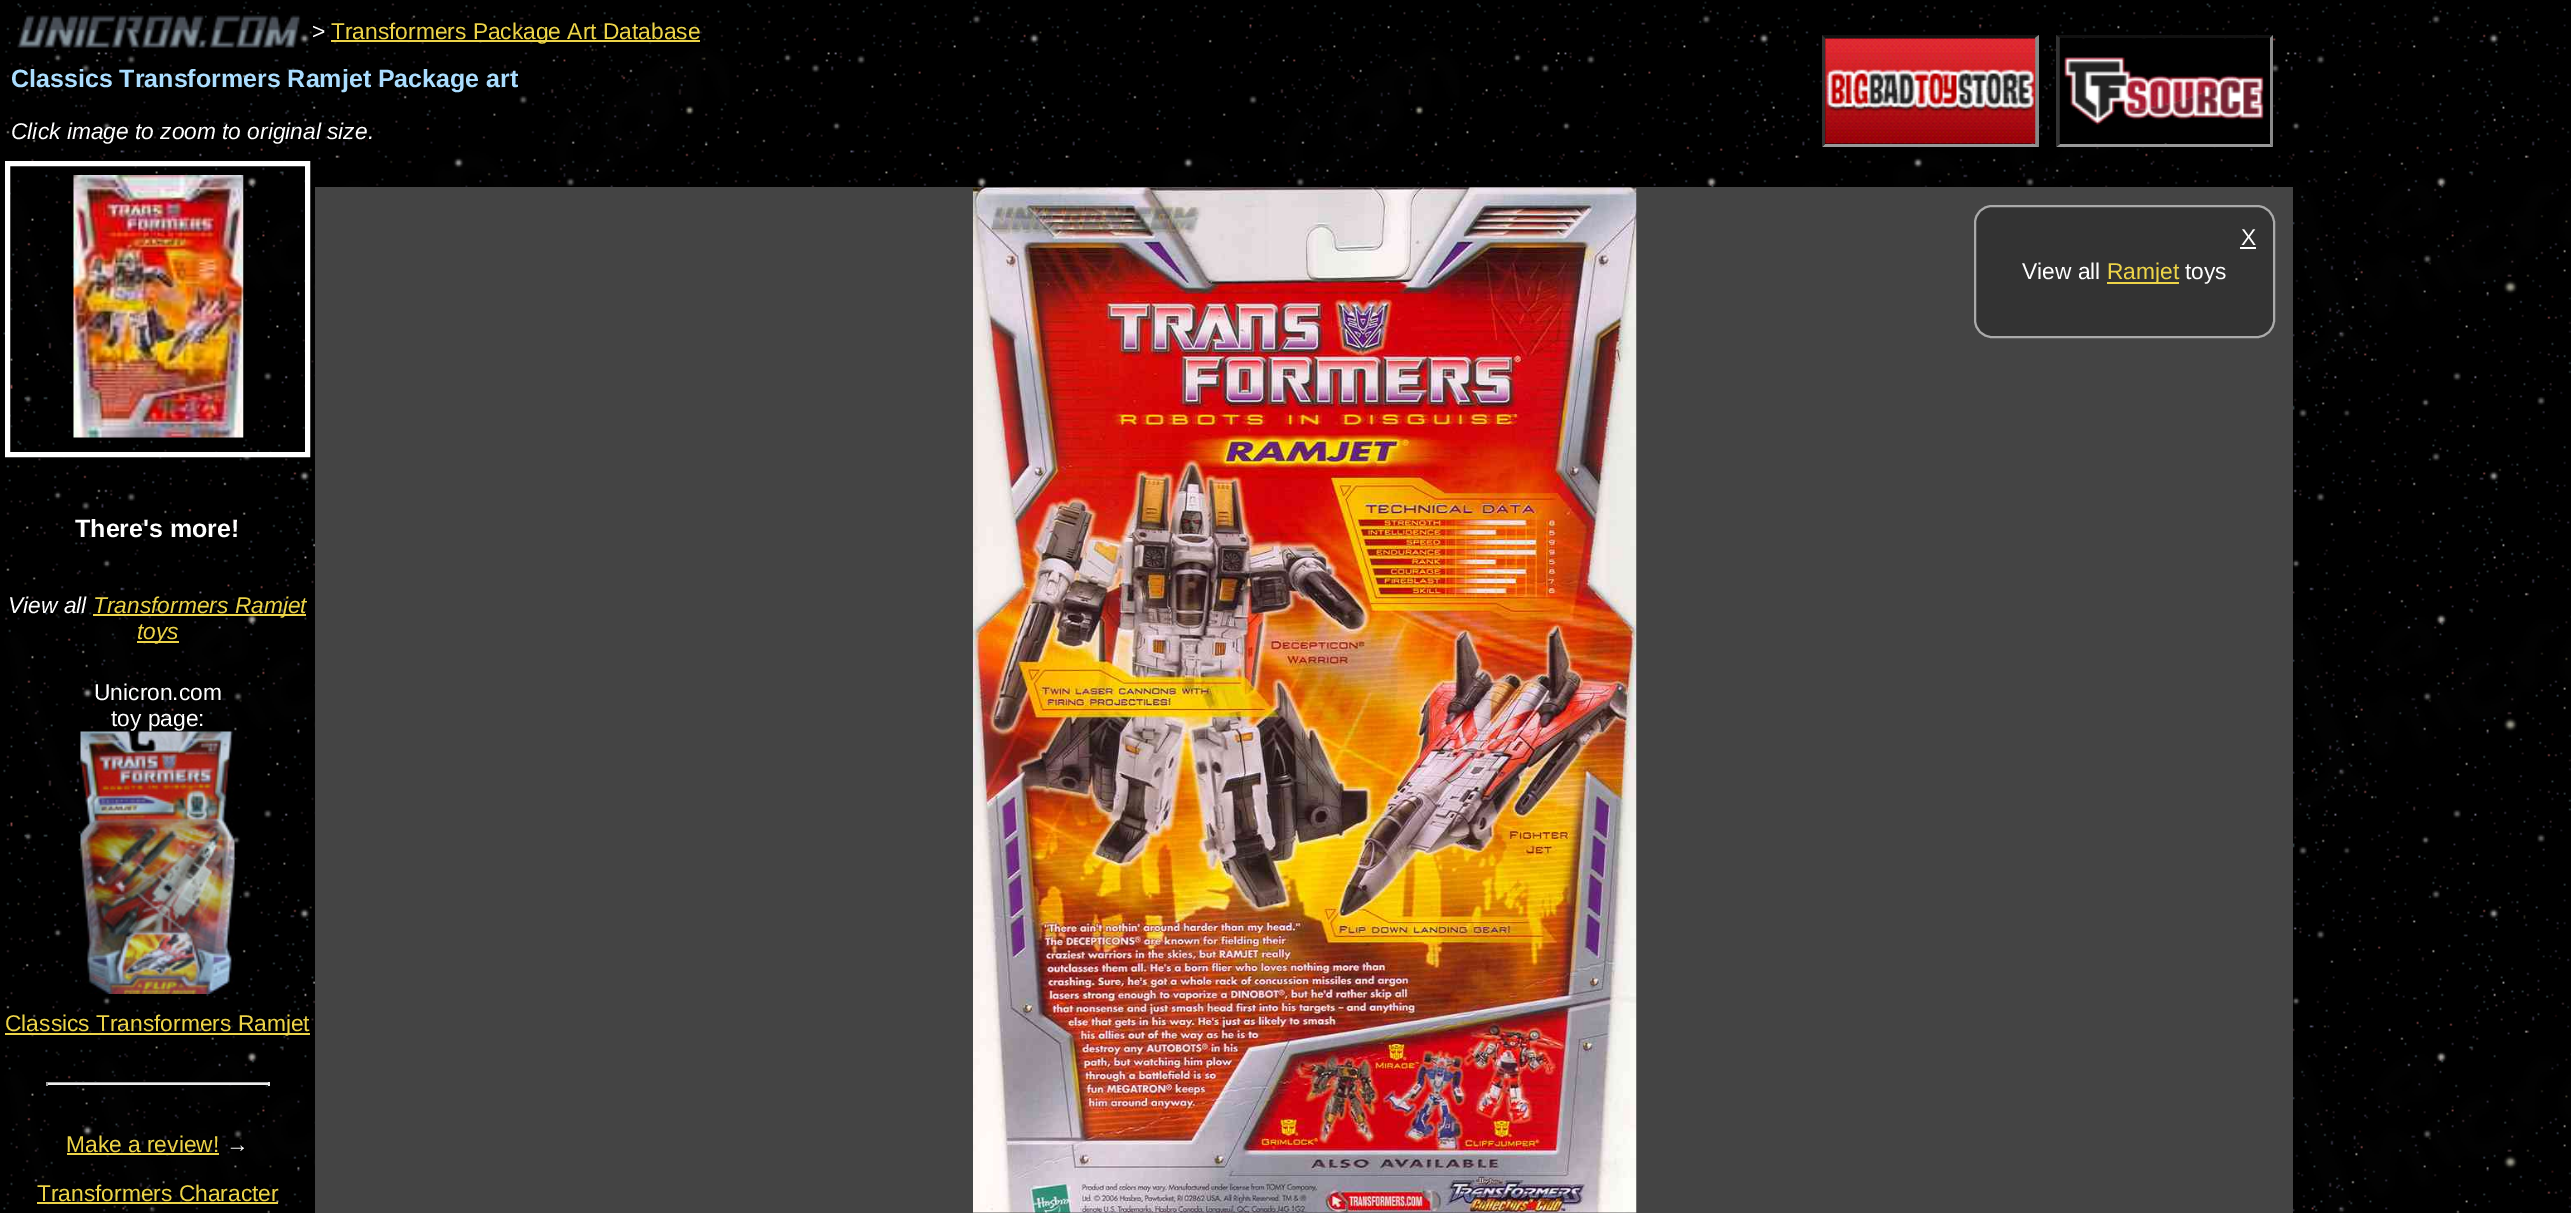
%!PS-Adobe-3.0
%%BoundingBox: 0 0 2571 1213
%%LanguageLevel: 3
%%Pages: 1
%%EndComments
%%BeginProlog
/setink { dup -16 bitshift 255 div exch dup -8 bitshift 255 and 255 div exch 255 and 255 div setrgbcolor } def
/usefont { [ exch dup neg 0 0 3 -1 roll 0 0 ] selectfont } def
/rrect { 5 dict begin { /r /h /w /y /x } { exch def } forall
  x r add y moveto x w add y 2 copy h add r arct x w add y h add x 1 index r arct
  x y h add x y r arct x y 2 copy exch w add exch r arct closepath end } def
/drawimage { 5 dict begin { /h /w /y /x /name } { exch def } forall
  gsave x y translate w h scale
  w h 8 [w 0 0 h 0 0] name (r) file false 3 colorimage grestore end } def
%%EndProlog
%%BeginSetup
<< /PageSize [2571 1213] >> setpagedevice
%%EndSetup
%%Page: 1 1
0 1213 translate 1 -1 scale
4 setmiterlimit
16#000000 setink
0 0 2571 1213 rectfill
(img1.raw) 3 1 2568 1212 drawimage
(img2.raw) 17 13 284 37 drawimage
/LiberationSans-Regular 22.75 usefont
16#FFFFFF setink
312 39 moveto (>) show
16#EDD448 setink
331 40 369 2 rectfill
331 39 moveto (Transformers Package Art Database) show
/LiberationSans-Bold 25 usefont
16#AADDFF setink
11 87 moveto (Classics Transformers Ramjet Package art) show
16#111111 setink
1822 35 moveto 2039 35 lineto 2035 38 lineto 1825 38 lineto closepath fill
16#888888 setink
2039 35 moveto 2039 147 lineto 2035 144 lineto 2035 38 lineto closepath fill
16#999999 setink
2039 147 moveto 1822 147 lineto 1825 144 lineto 2035 144 lineto closepath fill
16#333333 setink
1822 147 moveto 1822 35 lineto 1825 38 lineto 1825 144 lineto closepath fill
16#111111 setink
2056 35 moveto 2273 35 lineto 2270 38 lineto 2060 38 lineto closepath fill
(img3.raw) 1825 38 211 106 drawimage
16#888888 setink
2273 35 moveto 2273 147 lineto 2270 144 lineto 2270 38 lineto closepath fill
16#999999 setink
2273 147 moveto 2056 147 lineto 2060 144 lineto 2270 144 lineto closepath fill
16#333333 setink
2056 147 moveto 2056 35 lineto 2060 38 lineto 2060 144 lineto closepath fill
(img4.raw) 2059 38 211 106 drawimage
/LiberationSans-Italic 22.75 usefont
16#FFFFFF setink
11 139 moveto (Click image to zoom to original size.) show
16#444444 setink
315 187 1978 1026 rectfill
(img5.raw) 973 187 664 1026 drawimage
16#333333 setink
1975 206 299 131 17 rrect gsave fill grestore
16#AAAAAA setink
2 setlinewidth
stroke
/LiberationSans-Regular 22.75 usefont
16#FFFFFF setink
2241 245 moveto (X) show
2240 247 16 2 rectfill
2022 279 moveto (View all) show
16#EDD448 setink
2107 282 72 2 rectfill
2107 279 moveto (Ramjet) show
16#FFFFFF setink
2185 279 moveto (toys) show
5 setlinewidth
7.5 163.5 300 291 rectstroke
(img6.raw) 73 175 171 263 drawimage
/LiberationSans-Bold 25 usefont
75 537 moveto (There's more!) show
/LiberationSans-Italic 22.75 usefont
8 613 moveto (View all) show
16#EDD448 setink
93 614 213 2 rectfill
93 613 moveto (Transformers Ramjet) show
137 641 42 2 rectfill
137 639 moveto (toys) show
/LiberationSans-Regular 22.75 usefont
16#FFFFFF setink
94 700 moveto (Unicron.com) show
111 726 moveto (toy page:) show
(img7.raw) 80 731 155 263 drawimage
16#EDD448 setink
5 1033 305 2 rectfill
5 1031 moveto (Classics Transformers Ramjet) show
[
    [46 1082 224 1 16#9F9F9F]
    [268 1082 2 4 16#EEEEEE]
    [46 1083 224 2 16#EEEEEE]
    [46 1082 2 4 16#9F9F9F]
] { aload pop setink rectfill } forall
16#EDD448 setink
66 1152 moveto (Make a review!) show
67 1153 152 2 rectfill
16#FFFFFF setink
226 1152 moveto (→) show
16#EDD448 setink
37 1201 moveto (Transformers Character) show
37 1202 241 2 rectfill
showpage
%%EOF
